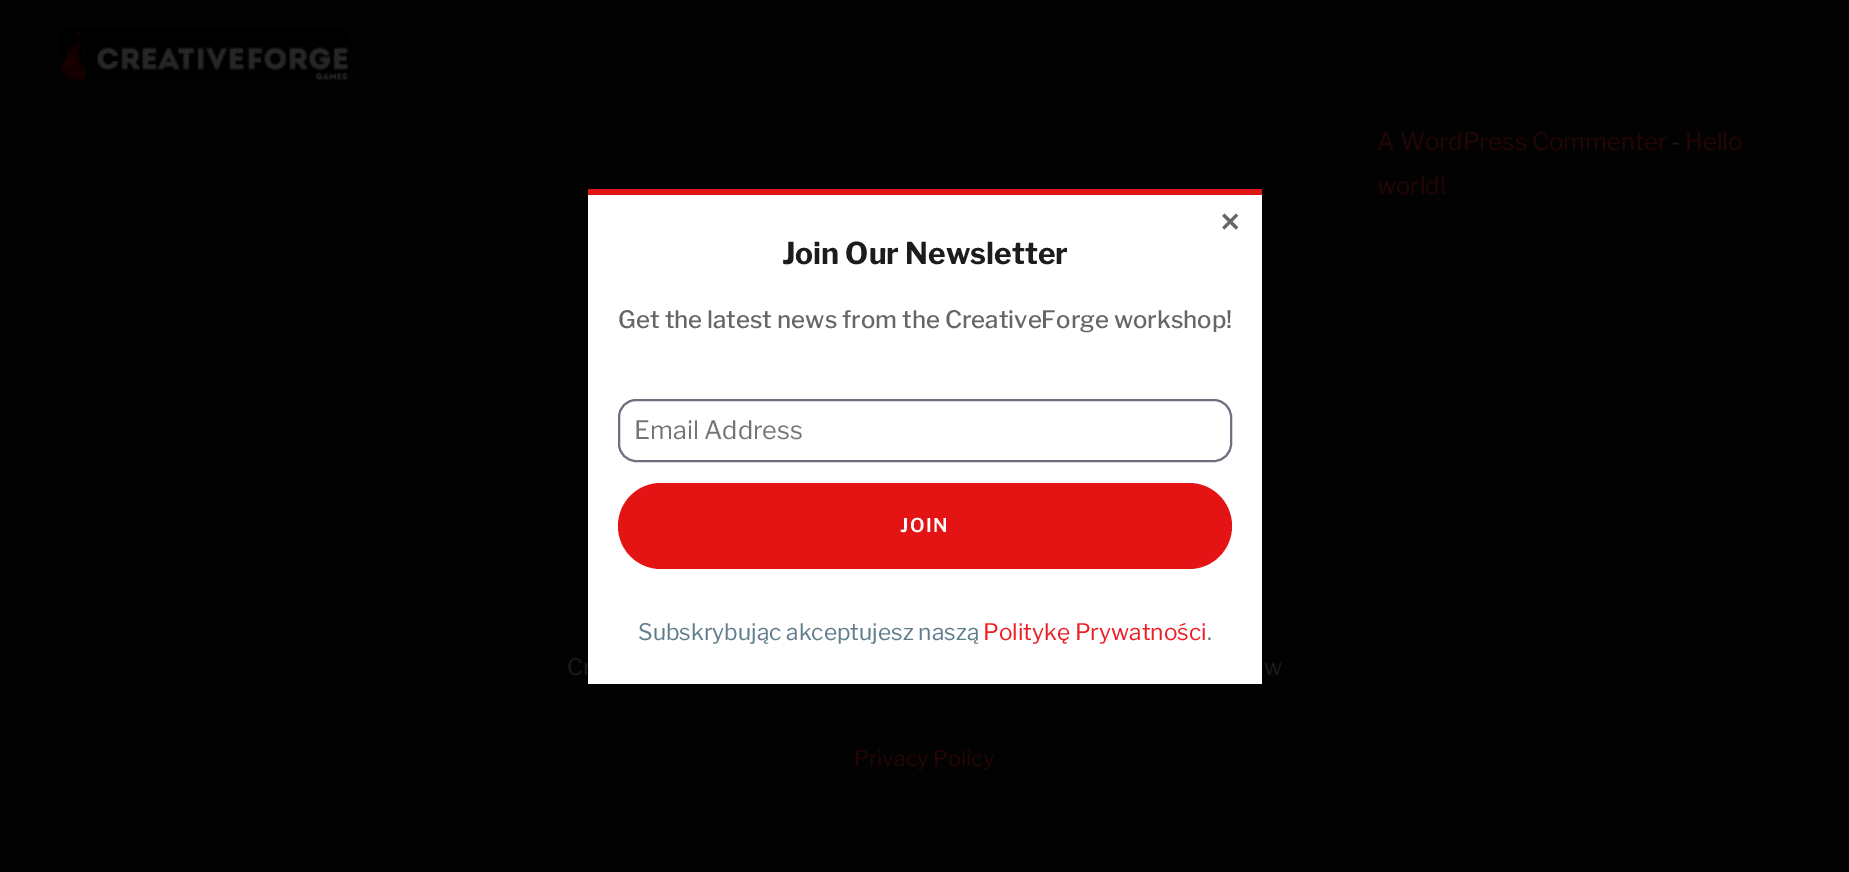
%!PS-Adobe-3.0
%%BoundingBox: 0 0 1849 872
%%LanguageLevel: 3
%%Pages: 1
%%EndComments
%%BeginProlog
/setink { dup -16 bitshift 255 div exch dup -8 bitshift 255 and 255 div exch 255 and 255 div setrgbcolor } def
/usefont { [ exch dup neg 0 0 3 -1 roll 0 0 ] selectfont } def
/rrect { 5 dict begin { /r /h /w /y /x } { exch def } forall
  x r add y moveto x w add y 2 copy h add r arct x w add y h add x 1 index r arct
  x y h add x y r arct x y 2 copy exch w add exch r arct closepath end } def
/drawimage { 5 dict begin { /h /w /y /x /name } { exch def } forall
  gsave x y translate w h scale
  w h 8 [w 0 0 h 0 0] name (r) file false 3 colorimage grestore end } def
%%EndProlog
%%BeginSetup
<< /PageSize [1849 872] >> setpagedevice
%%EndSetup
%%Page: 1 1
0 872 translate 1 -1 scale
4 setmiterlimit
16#020202 setink
0 0 1849 872 rectfill
(img1.raw) 61 29 288 52 drawimage
/LibreFranklin-Regular 24 usefont
16#240505 setink
1377 150 moveto (A WordPress Commenter) show
16#1C1C1D setink
1671 150 moveto (-) show
16#240505 setink
1685 150 moveto (Hello) show
1377 194 moveto (world!) show
/LibreFranklin-Regular 22.7 usefont
16#1C1C1D setink
567 675 moveto (Cr) show
1264 675 moveto (w) show
/LibreFranklin-Regular 21.5 usefont
16#240505 setink
854 766 moveto (Privacy Policy) show
16#FFFFFF setink
588 195 674 489 rectfill
16#DC1616 setink
588 189 674 6 rectfill
/LibreFranklin-SemiBold 36 usefont
16#666666 setink
1220 235 moveto 3 0 (×) ashow
/LibreFranklin-Bold 30 usefont
16#1C1C1D setink
782 264 moveto (Join Our Newsletter) show
/LibreFranklin-Medium 24 usefont
16#666666 setink
618 328 moveto (Get the latest news from the CreativeForge workshop!) show
16#6C717D setink
2 setlinewidth
619 400 612 61 17 rrect stroke
/LibreFranklin-Regular 25.25 usefont
16#757575 setink
634 439 moveto (Email Address) show
16#E41414 setink
618 483 614 86 43 rrect fill
/LibreFranklin-SemiBold 19 usefont
16#FEFEFE setink
900 532 moveto 1.5 0 (JOIN) ashow
/LibreFranklin-Regular 22.7 usefont
16#607D8B setink
638 640 moveto (Subskrybując akceptujesz naszą) show
16#ED1E24 setink
983 640 moveto (Politykę Prywatności) show
16#607D8B setink
1207 640 moveto (.) show
showpage
%%EOF
